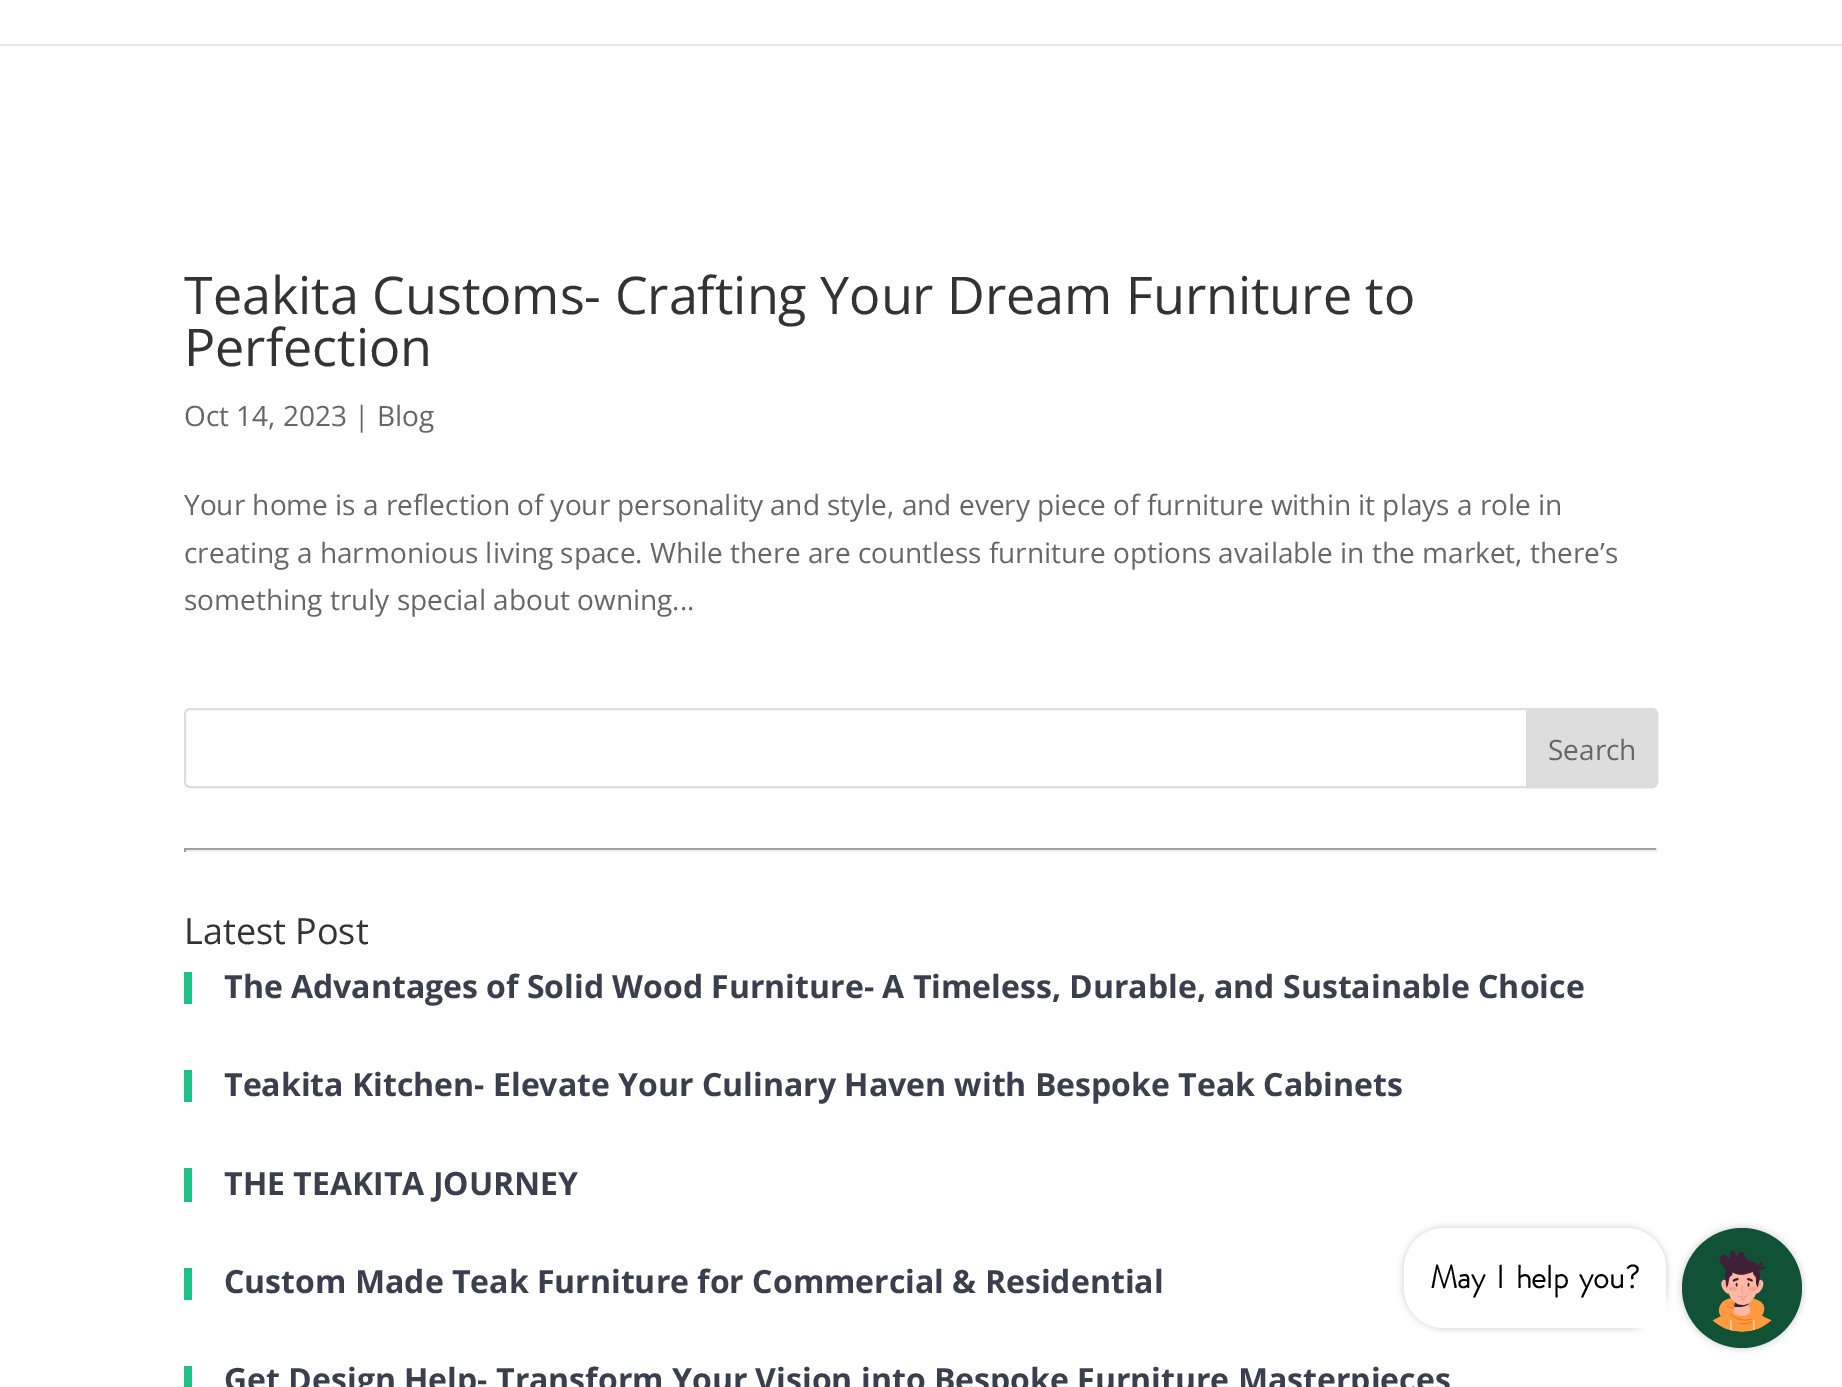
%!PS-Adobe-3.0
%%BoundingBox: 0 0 1842 1387
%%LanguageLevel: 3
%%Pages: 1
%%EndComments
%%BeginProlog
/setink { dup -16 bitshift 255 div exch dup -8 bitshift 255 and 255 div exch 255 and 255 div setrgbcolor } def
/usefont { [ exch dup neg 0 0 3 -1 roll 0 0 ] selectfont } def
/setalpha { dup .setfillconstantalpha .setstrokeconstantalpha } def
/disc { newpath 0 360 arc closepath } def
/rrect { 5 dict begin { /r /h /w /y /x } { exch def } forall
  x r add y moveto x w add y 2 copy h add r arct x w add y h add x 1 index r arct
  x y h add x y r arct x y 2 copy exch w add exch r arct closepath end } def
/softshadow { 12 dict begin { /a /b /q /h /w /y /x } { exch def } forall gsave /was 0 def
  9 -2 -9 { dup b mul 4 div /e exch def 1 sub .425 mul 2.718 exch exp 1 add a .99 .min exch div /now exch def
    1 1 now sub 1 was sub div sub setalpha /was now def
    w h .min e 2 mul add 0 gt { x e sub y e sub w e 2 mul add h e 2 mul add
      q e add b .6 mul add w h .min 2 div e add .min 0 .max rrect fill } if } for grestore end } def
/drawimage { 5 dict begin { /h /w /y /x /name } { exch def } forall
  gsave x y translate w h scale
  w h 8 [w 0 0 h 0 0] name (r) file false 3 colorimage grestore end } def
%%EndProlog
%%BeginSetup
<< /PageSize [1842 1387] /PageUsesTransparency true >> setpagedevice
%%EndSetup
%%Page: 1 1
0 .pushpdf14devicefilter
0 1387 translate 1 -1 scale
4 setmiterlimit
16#FFFFFF setink
0 0 1842 1387 rectfill
16#E6E6E6 setink
0 44 1842 2 rectfill
/OpenSans-Regular 52 usefont
16#333333 setink
184 314 moveto (Teakita Customs- Crafting Your Dream Furniture to) show
184 366 moveto (Perfection) show
/OpenSans-Regular 28 usefont
16#666666 setink
[
    [(Oct 14, 2023 | Blog) 184 426]
    [(Your home is a reflection of your personality and style, and every piece of furniture within it plays a role in) 184 515]
    [(creating a harmonious living space. While there are countless furniture options available in the market, there’s) 184 563]
    [(something truly special about owning...) 184 610]
] { aload pop moveto show } forall
16#DDDDDD setink
2 setlinewidth
185 709 1472 78 5 rrect stroke
1527 709 moveto 1652 709 lineto 1655 709 1657 711 1657 714 curveto 1657 782 lineto 1657 785 1655 787 1652 787 curveto 1527 787 lineto closepath gsave fill grestore
stroke
16#666666 setink
1548 760 moveto (Search) show
[
    [184 848 1474 2 16#9F9F9F]
    [1656 848 2 4 16#EEEEEE]
    [184 850 1474 2 16#EEEEEE]
    [184 848 2 4 16#9F9F9F]
] { aload pop setink rectfill } forall
/OpenSans-Regular 36 usefont
16#333333 setink
184 944 moveto (Latest Post) show
16#1EC185 setink
184 972 8 32 rectfill
/OpenSans-Bold 32 usefont
16#393F4C setink
224 998 moveto (The Advantages of Solid Wood Furniture- A Timeless, Durable, and Sustainable Choice) show
16#1EC185 setink
184 1070 8 32 rectfill
16#393F4C setink
224 1096 moveto (Teakita Kitchen- Elevate Your Culinary Haven with Bespoke Teak Cabinets) show
16#1EC185 setink
184 1168 8 34 rectfill
16#393F4C setink
224 1195 moveto (THE TEAKITA JOURNEY) show
16#1EC185 setink
184 1268 8 32 rectfill
16#393F4C setink
224 1293 moveto (Custom Made Teak Furniture for Commercial & Residential) show
16#1EC185 setink
184 1366 8 21 rectfill
16#393F4C setink
224 1391 moveto (Get Design Help- Transform Your Vision into Bespoke Furniture Masterpieces) show
16#929292 setink
1402 1226 266 104 42 3 0.3 softshadow
16#FFFFFF setink
1444 1228 moveto 1626 1228 lineto 1648 1228 1666 1246 1666 1268 curveto 1666 1322 lineto 1666 1325.5 1663.5 1328 1660 1328 curveto 1444 1328 lineto 1422 1328 1404 1310 1404 1288 curveto 1404 1268 lineto 1404 1246 1422 1228 1444 1228 curveto closepath fill
/BrandonGrotesque-Bold 32 usefont
16#000000 setink
1430 1288 moveto 4 0 32 (May I help you?) widthshow
16#929292 setink
1680 1226 124 124 62 3 0.3 softshadow
16#115237 setink
1742 1288 60 disc fill
(img1.raw) 1712 1250 60 82 drawimage
.poppdf14devicefilter showpage
%%EOF
